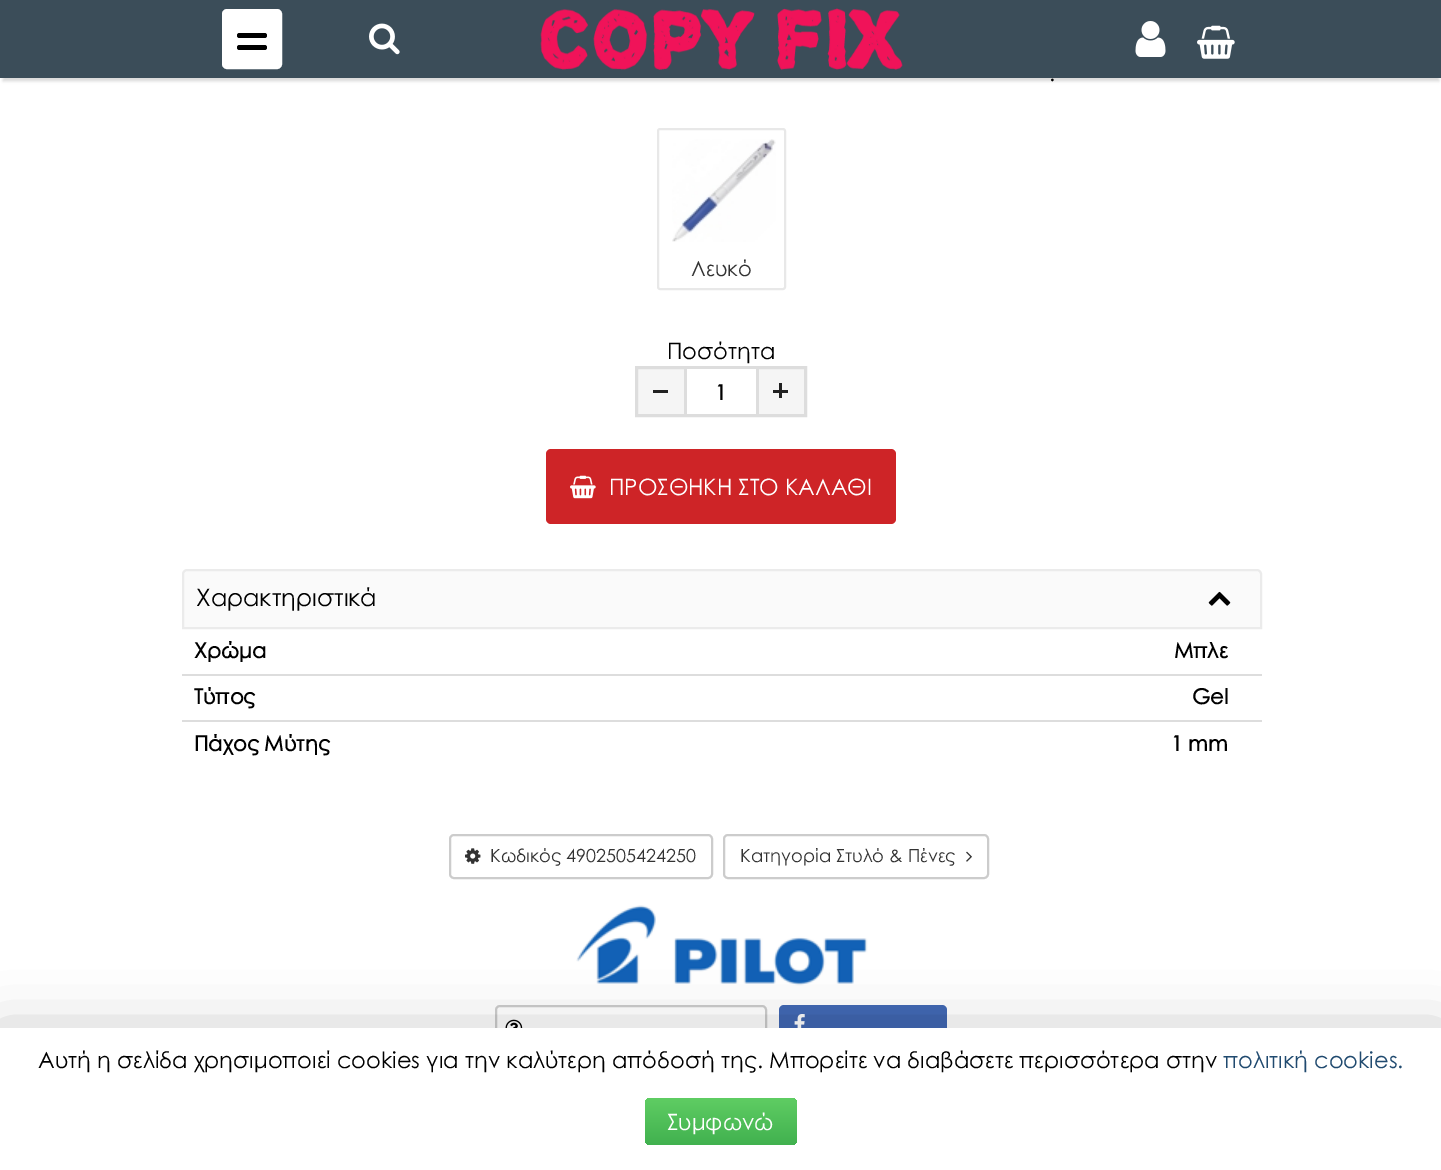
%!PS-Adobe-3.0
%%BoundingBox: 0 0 1441 1170
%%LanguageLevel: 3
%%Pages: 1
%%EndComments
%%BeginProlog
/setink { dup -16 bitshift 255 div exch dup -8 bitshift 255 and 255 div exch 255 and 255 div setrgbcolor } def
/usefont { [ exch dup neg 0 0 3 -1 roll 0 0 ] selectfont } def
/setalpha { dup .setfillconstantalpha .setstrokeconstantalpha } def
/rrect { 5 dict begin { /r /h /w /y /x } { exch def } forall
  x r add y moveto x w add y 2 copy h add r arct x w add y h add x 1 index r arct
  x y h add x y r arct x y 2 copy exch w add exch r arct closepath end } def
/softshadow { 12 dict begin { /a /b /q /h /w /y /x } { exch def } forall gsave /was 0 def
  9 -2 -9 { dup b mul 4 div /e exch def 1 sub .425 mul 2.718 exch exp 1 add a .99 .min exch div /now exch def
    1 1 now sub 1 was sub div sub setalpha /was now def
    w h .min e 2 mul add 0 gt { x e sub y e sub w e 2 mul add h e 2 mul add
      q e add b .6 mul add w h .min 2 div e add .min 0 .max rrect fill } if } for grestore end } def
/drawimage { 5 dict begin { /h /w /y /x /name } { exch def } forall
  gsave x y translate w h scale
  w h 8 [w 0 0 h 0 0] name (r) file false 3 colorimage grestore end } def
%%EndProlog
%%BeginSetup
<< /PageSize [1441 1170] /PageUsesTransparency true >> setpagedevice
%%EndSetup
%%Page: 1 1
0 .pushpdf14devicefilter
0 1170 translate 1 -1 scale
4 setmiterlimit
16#FFFFFF setink
0 0 1441 1170 rectfill
16#000000 setink
3 9 1436 72 0 1.5 0.15 softshadow
16#3B4D59 setink
0 0 1441 78 rectfill
16#FFFFFF setink
223 10 58 58 4 rrect gsave fill grestore
2 setlinewidth
stroke
16#000000 setink
237 33 30 5 2.5 rrect fill
237 45 30 5 2.5 rrect fill
(img1.raw) 369 23 31 32 drawimage
(img2.raw) 540 8 363 62 drawimage
(img3.raw) 1135 21 31 36 drawimage
(img4.raw) 1197 25 38 34 drawimage
/CenturyGothic-Regular 22.5 usefont
1049 81 moveto (.) show
16#E8E8E8 setink
658 129 127 160 2 rrect stroke
(img5.raw) 672 139 104 103 drawimage
/CenturyGothic-Regular 21 usefont
16#333333 setink
691 276 moveto (Λευκό) show
/CenturyGothic-Regular 22.5 usefont
16#000000 setink
667 359 moveto (Ποσότητα) show
16#F5F5F5 setink
636.5 367.5 moveto 805.5 367.5 lineto 805.5 415.5 lineto 636.5 415.5 lineto closepath gsave fill grestore
16#DDDDDD setink
3 setlinewidth
stroke
[
    [653 390 15 3 16#212121]
    [687 369 69 45 16#FFFFFF]
    [756 369 3 45 16#DDDDDD]
    [684 369 3 45 16#DDDDDD]
] { aload pop setink rectfill } forall
/CenturyGothic-Bold 21 usefont
16#000000 setink
715 400 moveto (1) show
16#212121 setink
773 390 15 3 rectfill
779 383 3 15 rectfill
16#CE2427 setink
546 449 350 75 5 rrect fill
(img6.raw) 570 475 26 24 drawimage
/CenturyGothic-Regular 22.5 usefont
16#FFFFFF setink
609 495 moveto (ΠΡΟΣΘΗΚΗ ΣΤΟ ΚΑΛΑΘΙ) show
16#FAFAFA setink
187 570 moveto 1257 570 lineto 1259 570 1261 572 1261 574 curveto 1261 628 lineto 183 628 lineto 183 574 lineto 183 572 185 570 187 570 curveto closepath gsave fill grestore
16#EBEBEB setink
2 setlinewidth
stroke
/CenturyGothic-Regular 24 usefont
16#000000 setink
196 606 moveto (Χαρακτηριστικά) show
(img7.raw) 1208 591 23 15 drawimage
/CenturyGothic-Bold 21 usefont
194 658 moveto (Χρώμα) show
1174 658 moveto (Μπλε) show
16#DDDDDD setink
182 674 1080 2 rectfill
16#000000 setink
194 704 moveto (Τύπος) show
1192 704 moveto (Gel) show
16#DDDDDD setink
182 720 1080 2 rectfill
16#000000 setink
194 751 moveto (Πάχος Μύτης) show
1171 751 moveto (1 mm) show
16#CCCCCC setink
450 835 262 43 4 rrect stroke
(img8.raw) 465 848 16 16 drawimage
/CenturyGothic-Regular 18 usefont
16#333333 setink
490 862 moveto (Κωδικός 4902505424250) show
16#CCCCCC setink
724 835 264 43 4 rrect stroke
16#333333 setink
740 862 moveto (Κατηγορία Στυλό & Πένες) show
(img9.raw) 966 851 6 11 drawimage
(img10.raw) 576 905 292 81 drawimage
16#CCCCCC setink
496 1006 270 42 4 rrect stroke
(img11.raw) 505 1019 18 9 drawimage
16#4267B2 setink
779 1005 168 42 5 rrect fill
(img12.raw) 794 1014 11 14 drawimage
16#000000 setink
0 1037 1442 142 0 30 0.3 softshadow
16#FFFFFF setink
0 1028 1441 142 rectfill
/CenturyGothic-Regular 22.5 usefont
16#000000 setink
38 1068 moveto (Αυτή η σελίδα χρησιμοποιεί cookies για την καλύτερη απόδοσή της. Μπορείτε να διαβάσετε περισσότερα στην) show
16#204A6F setink
1223 1068 moveto (πολιτική cookies.) show
gsave 645 1098 152 47 5 rrect clip newpath
<< /ShadingType 2 /ColorSpace /DeviceRGB /Coords [721 1098 721 1145] /Extend [true true] /Function << /FunctionType 2 /Domain [0 1] /C0 [0.373 0.804 0.388] /C1 [0.255 0.694 0.31] /N 1 >> >> shfill grestore
16#FFFFFF setink
667 1130 moveto (Συμφωνώ) show
.poppdf14devicefilter showpage
%%EOF
